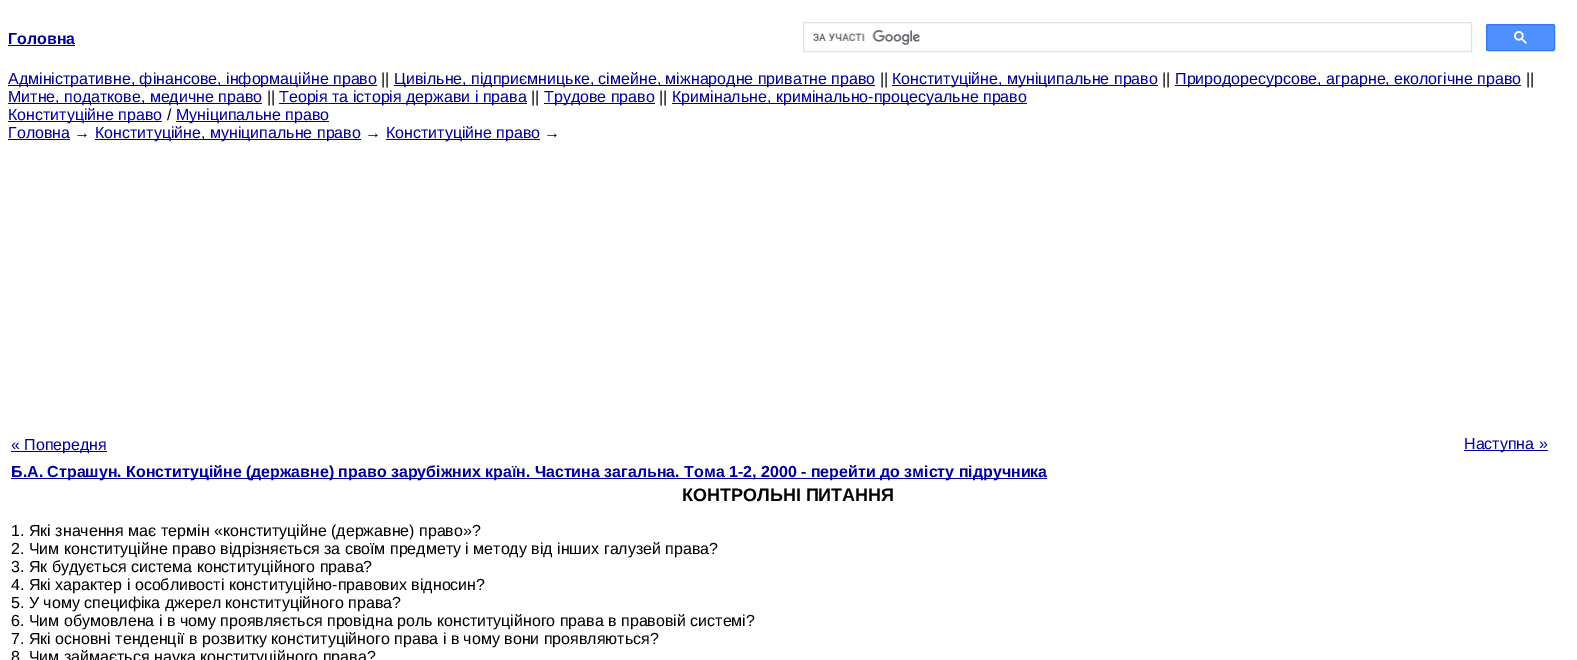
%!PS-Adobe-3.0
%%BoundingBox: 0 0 1577 660
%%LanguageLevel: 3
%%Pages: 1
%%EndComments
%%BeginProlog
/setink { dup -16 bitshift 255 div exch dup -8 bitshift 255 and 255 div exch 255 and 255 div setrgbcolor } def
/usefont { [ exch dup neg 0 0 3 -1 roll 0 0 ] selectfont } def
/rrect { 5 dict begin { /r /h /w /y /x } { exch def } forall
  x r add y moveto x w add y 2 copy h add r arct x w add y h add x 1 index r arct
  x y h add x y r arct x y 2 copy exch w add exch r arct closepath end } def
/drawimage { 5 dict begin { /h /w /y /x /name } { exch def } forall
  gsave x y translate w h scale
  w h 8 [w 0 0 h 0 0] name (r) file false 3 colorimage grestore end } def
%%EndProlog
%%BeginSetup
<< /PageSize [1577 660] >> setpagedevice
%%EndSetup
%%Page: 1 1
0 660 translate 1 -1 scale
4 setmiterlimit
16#FFFFFF setink
0 0 1577 660 rectfill
/LiberationSans-Bold 16 usefont
16#000099 setink
8 44 moveto (Головна) show
8 45 67 1 rectfill
16#DFE1E5 setink
803.5 22.5 668 29 rectstroke
(img1.raw) 813 30 107 15 drawimage
16#4D90FE setink
1486.5 24.5 68 26 1.5 rrect gsave fill grestore
16#3079ED setink
stroke
(img2.raw) 1514 31 13 13 drawimage
16#000099 setink
8 85 369 1 rectfill
/LiberationSans-Regular 16 usefont
8 84 moveto (Адміністративне, фінансове, інформаційне право) show
16#000000 setink
381 84 moveto (||) show
16#000099 setink
394 85 481 1 rectfill
394 84 moveto (Цивільне, підприємницьке, сімейне, міжнародне приватне право) show
16#000000 setink
880 84 moveto (||) show
16#000099 setink
892 85 266 1 rectfill
892 84 moveto (Конституційне, муніципальне право) show
16#000000 setink
1162 84 moveto (||) show
16#000099 setink
1175 85 346 1 rectfill
1175 84 moveto (Природоресурсове, аграрне, екологічне право) show
16#000000 setink
1526 84 moveto (||) show
16#000099 setink
8 103 254 1 rectfill
8 102 moveto (Митне, податкове, медичне право) show
16#000000 setink
267 102 moveto (||) show
16#000099 setink
279 103 248 1 rectfill
279 102 moveto (Теорія та історія держави і права) show
16#000000 setink
531 102 moveto (||) show
16#000099 setink
544 103 111 1 rectfill
544 102 moveto (Трудове право) show
16#000000 setink
659 102 moveto (||) show
16#000099 setink
672 103 355 1 rectfill
672 102 moveto (Кримінальне, кримінально-процесуальне право) show
8 121 154 1 rectfill
8 120 moveto (Конституційне право) show
16#000000 setink
167 120 moveto (/) show
16#000099 setink
176 121 153 1 rectfill
176 120 moveto (Муніципальне право) show
8 138 moveto (Головна) show
8 139 62 1 rectfill
16#000000 setink
74 138 moveto (→) show
16#000099 setink
95 139 266 1 rectfill
95 138 moveto (Конституційне, муніципальне право) show
16#000000 setink
365 138 moveto (→) show
16#000099 setink
386 139 154 1 rectfill
386 138 moveto (Конституційне право) show
16#000000 setink
544 138 moveto (→) show
16#000099 setink
11 451 96 1 rectfill
11 450 moveto (« Попередня) show
1464 450 84 1 rectfill
1464 449 moveto (Наступна ») show
11 478 1036 1 rectfill
/LiberationSans-Bold 16 usefont
11 477 moveto (Б.А. Страшун. Конституційне \(державне\) право зарубіжних країн. Частина загальна. Тома 1-2, 2000 - перейти до змісту підручника) show
/LiberationSans-Bold 18 usefont
16#000000 setink
682 501 moveto (КОНТРОЛЬНІ ПИТАННЯ) show
/LiberationSans-Regular 16 usefont
[
    [(1. Які значення має термін «конституційне \(державне\) право»?) 11 536]
    [(2. Чим конституційне право відрізняється за своїм предмету і методу від інших галузей права?) 11 554]
    [(3. Як будується система конституційного права?) 11 572]
    [(4. Які характер і особливості конституційно-правових відносин?) 11 590]
    [(5. У чому специфіка джерел конституційного права?) 11 608]
    [(6. Чим обумовлена і в чому проявляється провідна роль конституційного права в правовій системі?) 11 626]
    [(7. Які основні тенденції в розвитку конституційного права і в чому вони проявляються?) 11 644]
    [(8. Чим займається наука конституційного права?) 11 662]
] { aload pop moveto show } forall
showpage
%%EOF
